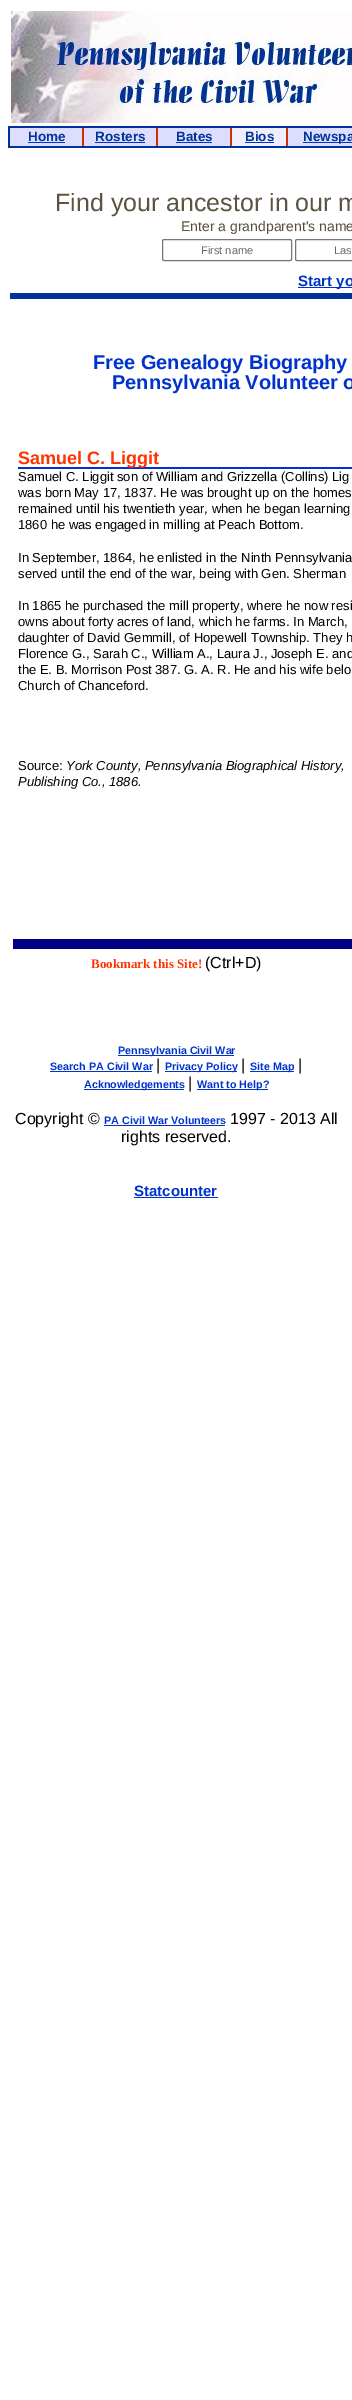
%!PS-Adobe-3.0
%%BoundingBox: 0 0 352 2400
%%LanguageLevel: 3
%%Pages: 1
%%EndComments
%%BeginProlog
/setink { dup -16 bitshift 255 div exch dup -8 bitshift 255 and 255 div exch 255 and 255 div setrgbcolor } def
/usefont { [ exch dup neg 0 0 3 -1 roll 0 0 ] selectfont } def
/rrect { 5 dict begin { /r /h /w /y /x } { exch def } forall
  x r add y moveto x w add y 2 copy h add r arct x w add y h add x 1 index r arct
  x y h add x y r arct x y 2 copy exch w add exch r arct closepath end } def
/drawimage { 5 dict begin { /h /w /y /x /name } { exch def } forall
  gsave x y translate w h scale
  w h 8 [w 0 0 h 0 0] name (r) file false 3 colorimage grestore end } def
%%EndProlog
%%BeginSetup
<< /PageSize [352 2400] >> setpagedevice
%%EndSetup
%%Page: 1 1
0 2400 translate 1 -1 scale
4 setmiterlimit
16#FFFFFF setink
0 0 352 2400 rectfill
(img1.raw) 11 11 341 112 drawimage
[
    [8 126 344 2 16#003399]
    [8 128 2 18 16#003399]
    [10 128 72 18 16#DDDDFF]
] { aload pop setink rectfill } forall
/LiberationSans-Bold 13.5 usefont
16#003399 setink
28 141 moveto (Home) show
[
    [28 142 37 1 16#0033CC]
    [82 128 2 18 16#CC3300]
    [84 128 72 18 16#DDDDFF]
] { aload pop setink rectfill } forall
16#003399 setink
95 141 moveto (Rosters) show
[
    [95 142 50 1 16#0033CC]
    [156 128 2 18 16#CC3300]
    [158 128 72 18 16#DDDDFF]
] { aload pop setink rectfill } forall
16#003399 setink
176 141 moveto (Bates) show
[
    [176 142 36 1 16#0033CC]
    [230 128 2 18 16#CC3300]
    [232 128 54 18 16#EEEEFF]
] { aload pop setink rectfill } forall
16#003399 setink
245 141 moveto (Bios) show
[
    [245 142 29 1 16#0033CC]
    [286 128 2 18 16#CC3300]
    [288 128 64 18 16#DDDDFF]
    [303 142 49 1 16#0033CC]
] { aload pop setink rectfill } forall
16#003399 setink
303 141 moveto (Newspa) show
8 146 344 2 rectfill
/LiberationSans-Regular 25 usefont
16#5C5340 setink
55 211 moveto (Find your ancestor in our m) show
/LiberationSans-Regular 14 usefont
16#574F38 setink
181 231 moveto (Enter a grandparent's name) show
16#767676 setink
162.5 239.5 129 21 1.5 rrect stroke
/LiberationSans-Regular 11 usefont
16#676767 setink
201 254 moveto (First name) show
16#767676 setink
295.5 239.5 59 21 1.5 rrect stroke
16#676767 setink
334 254 moveto (Las) show
16#0033CC setink
298 287 54 1 rectfill
/LiberationSans-Bold 15 usefont
298 286 moveto (Start yo) show
16#003399 setink
10 293 342 6 rectfill
/LiberationSans-Bold 20 usefont
16#0033CC setink
93 369 moveto (Free Genealogy Biography) show
112 389 moveto (Pennsylvania Volunteer o) show
18 467 334 2 rectfill
/LiberationSans-Bold 18 usefont
16#FF3300 setink
18 464 moveto (Samuel C. Liggit) show
/LiberationSans-Regular 13 usefont
16#000000 setink
[
    [(Samuel C. Liggit son of William and Grizzella \(Collins\) Lig) 18 481]
    [(was born May 17, 1837. He was brought up on the homes) 18 497]
    [(remained until his twentieth year, when he began learning) 18 513]
    [(1860 he was engaged in milling at Peach Bottom.) 18 529]
    [(In September, 1864, he enlisted in the Ninth Pennsylvania) 18 562]
    [(served until the end of the war, being with Gen. Sherman) 18 578]
    [(In 1865 he purchased the mill property, where he now resi) 18 610]
    [(owns about forty acres of land, which he farms. In March,) 18 626]
    [(daughter of David Gemmill, of Hopewell Township. They h) 18 642]
    [(Florence G., Sarah C., William A., Laura J., Joseph E. and) 18 658]
    [(the E. B. Morrison Post 387. G. A. R. He and his wife belo) 18 674]
    [(Church of Chanceford.) 18 690]
    [(Source:) 18 770]
] { aload pop moveto show } forall
/LiberationSans-Italic 13 usefont
66 770 moveto (York County, Pennsylvania Biographical History,) show
18 786 moveto (Publishing Co., 1886.) show
16#000080 setink
13 939 339 10 rectfill
/LiberationSerif-Bold 13 usefont
16#FF3300 setink
91 968 moveto (Bookmark this Site!) show
/LiberationSans-Regular 16 usefont
16#000000 setink
205 968 moveto (\(Ctrl+D\)) show
16#0033CC setink
118 1055 116 1 rectfill
/LiberationSans-Bold 10.75 usefont
118 1054 moveto (Pennsylvania Civil War) show
50 1070 moveto (Search PA Civil War) show
50 1071 102 1 rectfill
/LiberationSans-Regular 16 usefont
16#000000 setink
156 1070 moveto (|) show
16#0033CC setink
165 1071 72 1 rectfill
/LiberationSans-Bold 10.75 usefont
165 1070 moveto (Privacy Policy) show
/LiberationSans-Regular 16 usefont
16#000000 setink
241 1070 moveto (|) show
16#0033CC setink
250 1071 44 1 rectfill
/LiberationSans-Bold 10.75 usefont
250 1070 moveto (Site Map) show
/LiberationSans-Regular 16 usefont
16#000000 setink
298 1070 moveto (|) show
16#0033CC setink
84 1089 100 1 rectfill
/LiberationSans-Bold 10.75 usefont
84 1088 moveto (Acknowledgements) show
/LiberationSans-Regular 16 usefont
16#000000 setink
188 1088 moveto (|) show
16#0033CC setink
197 1089 71 1 rectfill
/LiberationSans-Bold 10.75 usefont
197 1088 moveto (Want to Help?) show
/LiberationSans-Regular 16 usefont
16#000000 setink
15 1124 moveto (Copyright ©) show
/LiberationSans-Bold 10.75 usefont
16#0033CC setink
104 1124 moveto (PA Civil War Volunteers) show
104 1125 121 1 rectfill
/LiberationSans-Regular 16 usefont
16#000000 setink
230 1124 moveto (1997 - 2013 All) show
121 1142 moveto (rights reserved.) show
/LiberationSans-Bold 15 usefont
16#0033CC setink
134 1196 moveto (Statcounter) show
134 1197 84 1 rectfill
showpage
%%EOF
